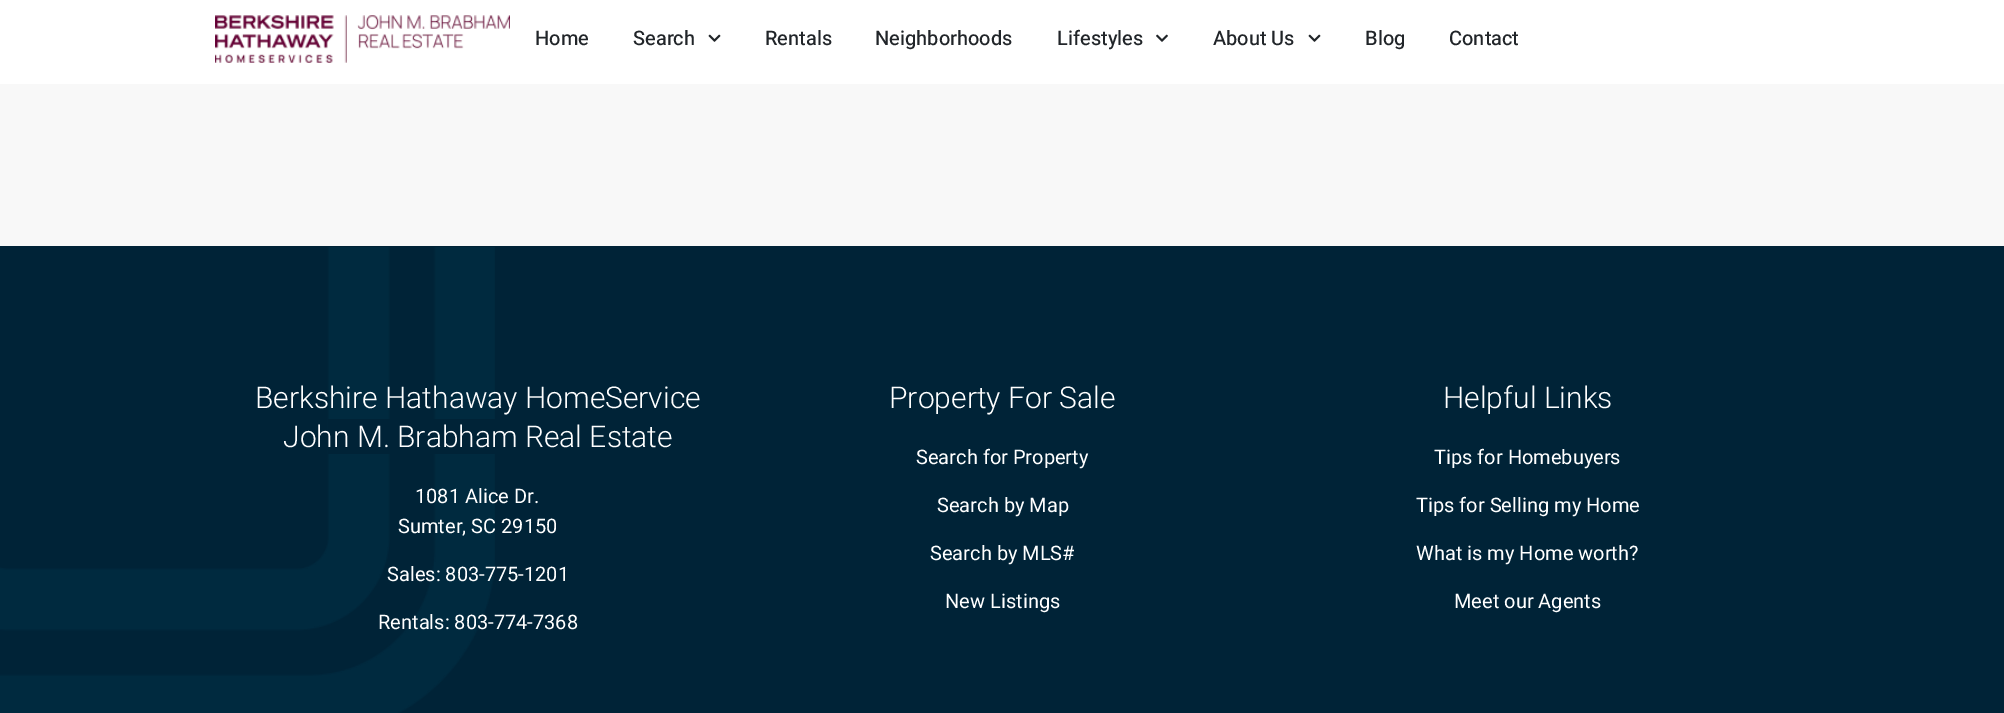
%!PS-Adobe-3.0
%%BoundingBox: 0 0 2004 713
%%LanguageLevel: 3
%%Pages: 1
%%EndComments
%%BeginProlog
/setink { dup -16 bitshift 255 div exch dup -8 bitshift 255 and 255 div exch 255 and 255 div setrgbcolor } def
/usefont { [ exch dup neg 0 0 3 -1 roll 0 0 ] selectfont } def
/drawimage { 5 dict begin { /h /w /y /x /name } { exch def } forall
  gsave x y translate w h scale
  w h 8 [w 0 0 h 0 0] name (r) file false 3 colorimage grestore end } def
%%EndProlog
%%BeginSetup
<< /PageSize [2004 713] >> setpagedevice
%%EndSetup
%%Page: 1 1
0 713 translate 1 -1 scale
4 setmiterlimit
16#F8F8F8 setink
0 0 2004 713 rectfill
16#FFFFFF setink
0 0 2004 84 rectfill
(img1.raw) 215 15 295 48 drawimage
/Heebo-Medium 20 usefont
16#212529 setink
535 45 moveto (Home) show
633 45 moveto (Search) show
(img2.raw) 708 34 13 8 drawimage
[
    [(Rentals) 765 45]
    [(Neighborhoods) 875 45]
    [(Lifestyles) 1057 45]
] { aload pop moveto show } forall
(img3.raw) 1156 34 12 8 drawimage
1213 45 moveto (About Us) show
(img2.raw) 1308 34 13 8 drawimage
1365 45 moveto (Blog) show
1449 45 moveto (Contact) show
16#002337 setink
0 246 2004 467 rectfill
(img4.raw) 0 247 495 466 drawimage
/Roboto-Light 30 usefont
16#FFFFFF setink
255 408 moveto (Berkshire Hathaway HomeService) show
16#002337 setink
328 419 167 35 rectfill
16#FFFFFF setink
283 447 moveto (John M. Brabham Real Estate) show
/Heebo-Regular 20 usefont
[
    [(1081 Alice Dr.) 415 503]
    [(Sumter, SC 29150) 398 533]
    [(Sales: 803-775-1201) 387 581]
    [(Rentals: 803-774-7368) 378 629]
] { aload pop moveto show } forall
/Roboto-Light 30 usefont
889 408 moveto (Property For Sale) show
/Heebo-Regular 20 usefont
[
    [(Search for Property) 916 464]
    [(Search by Map) 937 512]
    [(Search by MLS#) 930 560]
    [(New Listings) 945 608]
] { aload pop moveto show } forall
/Roboto-Light 30 usefont
1443 408 moveto (Helpful Links) show
/Heebo-Regular 20 usefont
[
    [(Tips for Homebuyers) 1434 464]
    [(Tips for Selling my Home) 1416 512]
    [(What is my Home worth?) 1416 560]
    [(Meet our Agents) 1454 608]
] { aload pop moveto show } forall
showpage
%%EOF
